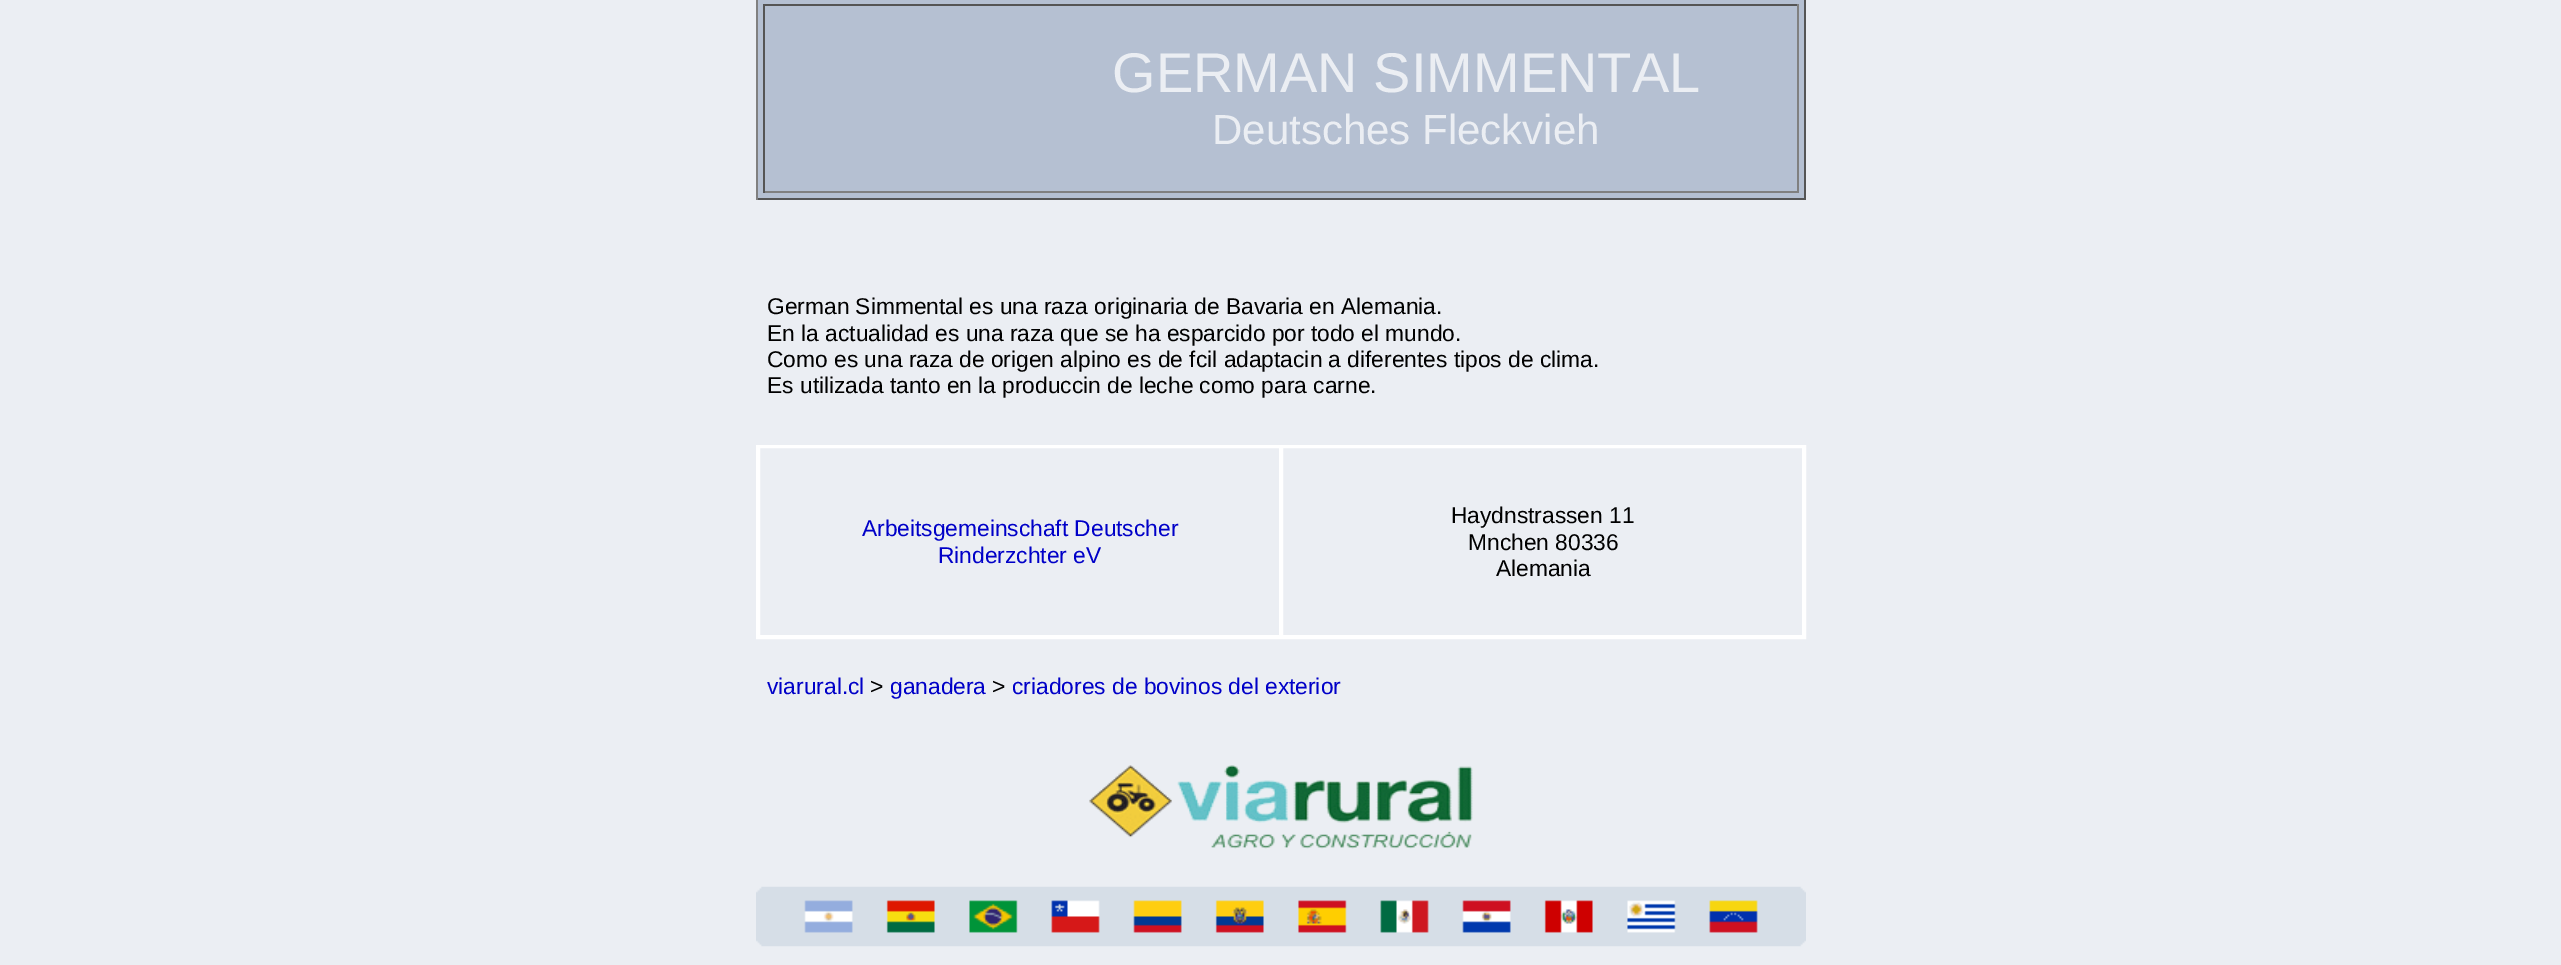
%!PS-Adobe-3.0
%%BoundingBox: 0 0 2561 965
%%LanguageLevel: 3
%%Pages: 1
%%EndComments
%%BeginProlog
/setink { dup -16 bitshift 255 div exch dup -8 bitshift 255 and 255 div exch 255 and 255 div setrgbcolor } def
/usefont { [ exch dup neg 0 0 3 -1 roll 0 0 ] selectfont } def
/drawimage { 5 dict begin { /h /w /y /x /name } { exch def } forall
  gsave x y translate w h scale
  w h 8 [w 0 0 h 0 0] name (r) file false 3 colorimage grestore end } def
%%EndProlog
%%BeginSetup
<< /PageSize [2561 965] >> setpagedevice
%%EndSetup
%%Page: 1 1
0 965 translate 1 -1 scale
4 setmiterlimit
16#EBEEF3 setink
0 0 2561 965 rectfill
[
    [758 0 1046 198 16#B5C0D2]
    [1804 0 2 200 16#555555]
    [756 198 1050 2 16#555555]
    [756 0 2 200 16#808080]
    [763 4 1036 2 16#555555]
    [1797 4 2 189 16#808080]
    [763 191 1036 2 16#808080]
    [763 4 2 189 16#555555]
] { aload pop setink rectfill } forall
/LiberationSans-Regular 56 usefont
16#EBEEF3 setink
1112 92 moveto (GERMAN SIMMENTAL) show
/LiberationSans-Regular 42 usefont
1212 144 moveto (Deutsches Fleckvieh) show
/LiberationSans-Regular 22.75 usefont
16#000000 setink
[
    [(German Simmental es una raza originaria de Bavaria en Alemania.) 767 314]
    [(En la actualidad es una raza que se ha esparcido por todo el mundo.) 767 341]
    [(Como es una raza de origen alpino es de fcil adaptacin a diferentes tipos de clima.) 767 367]
    [(Es utilizada tanto en la produccin de leche como para carne.) 767 393]
] { aload pop moveto show } forall
16#FFFFFF setink
2 setlinewidth
757 446 1048 192 rectstroke
759 447 521 189 rectstroke
16#0000C8 setink
862 536 moveto (Arbeitsgemeinschaft Deutscher) show
938 563 moveto (Rinderzchter eV) show
16#FFFFFF setink
1282 447 521 189 rectstroke
16#000000 setink
[
    [(Haydnstrassen 11) 1451 523]
    [(Mnchen 80336) 1468 550]
    [(Alemania) 1496 576]
] { aload pop moveto show } forall
16#0000C8 setink
767 694 moveto (viarural.cl) show
16#000000 setink
870 694 moveto (>) show
16#0000C8 setink
890 694 moveto (ganadera) show
16#000000 setink
992 694 moveto (>) show
16#0000C8 setink
1012 694 moveto (criadores de bovinos del exterior) show
(img1.raw) 1089 765 384 84 drawimage
(img2.raw) 756 886 1050 61 drawimage
showpage
%%EOF
